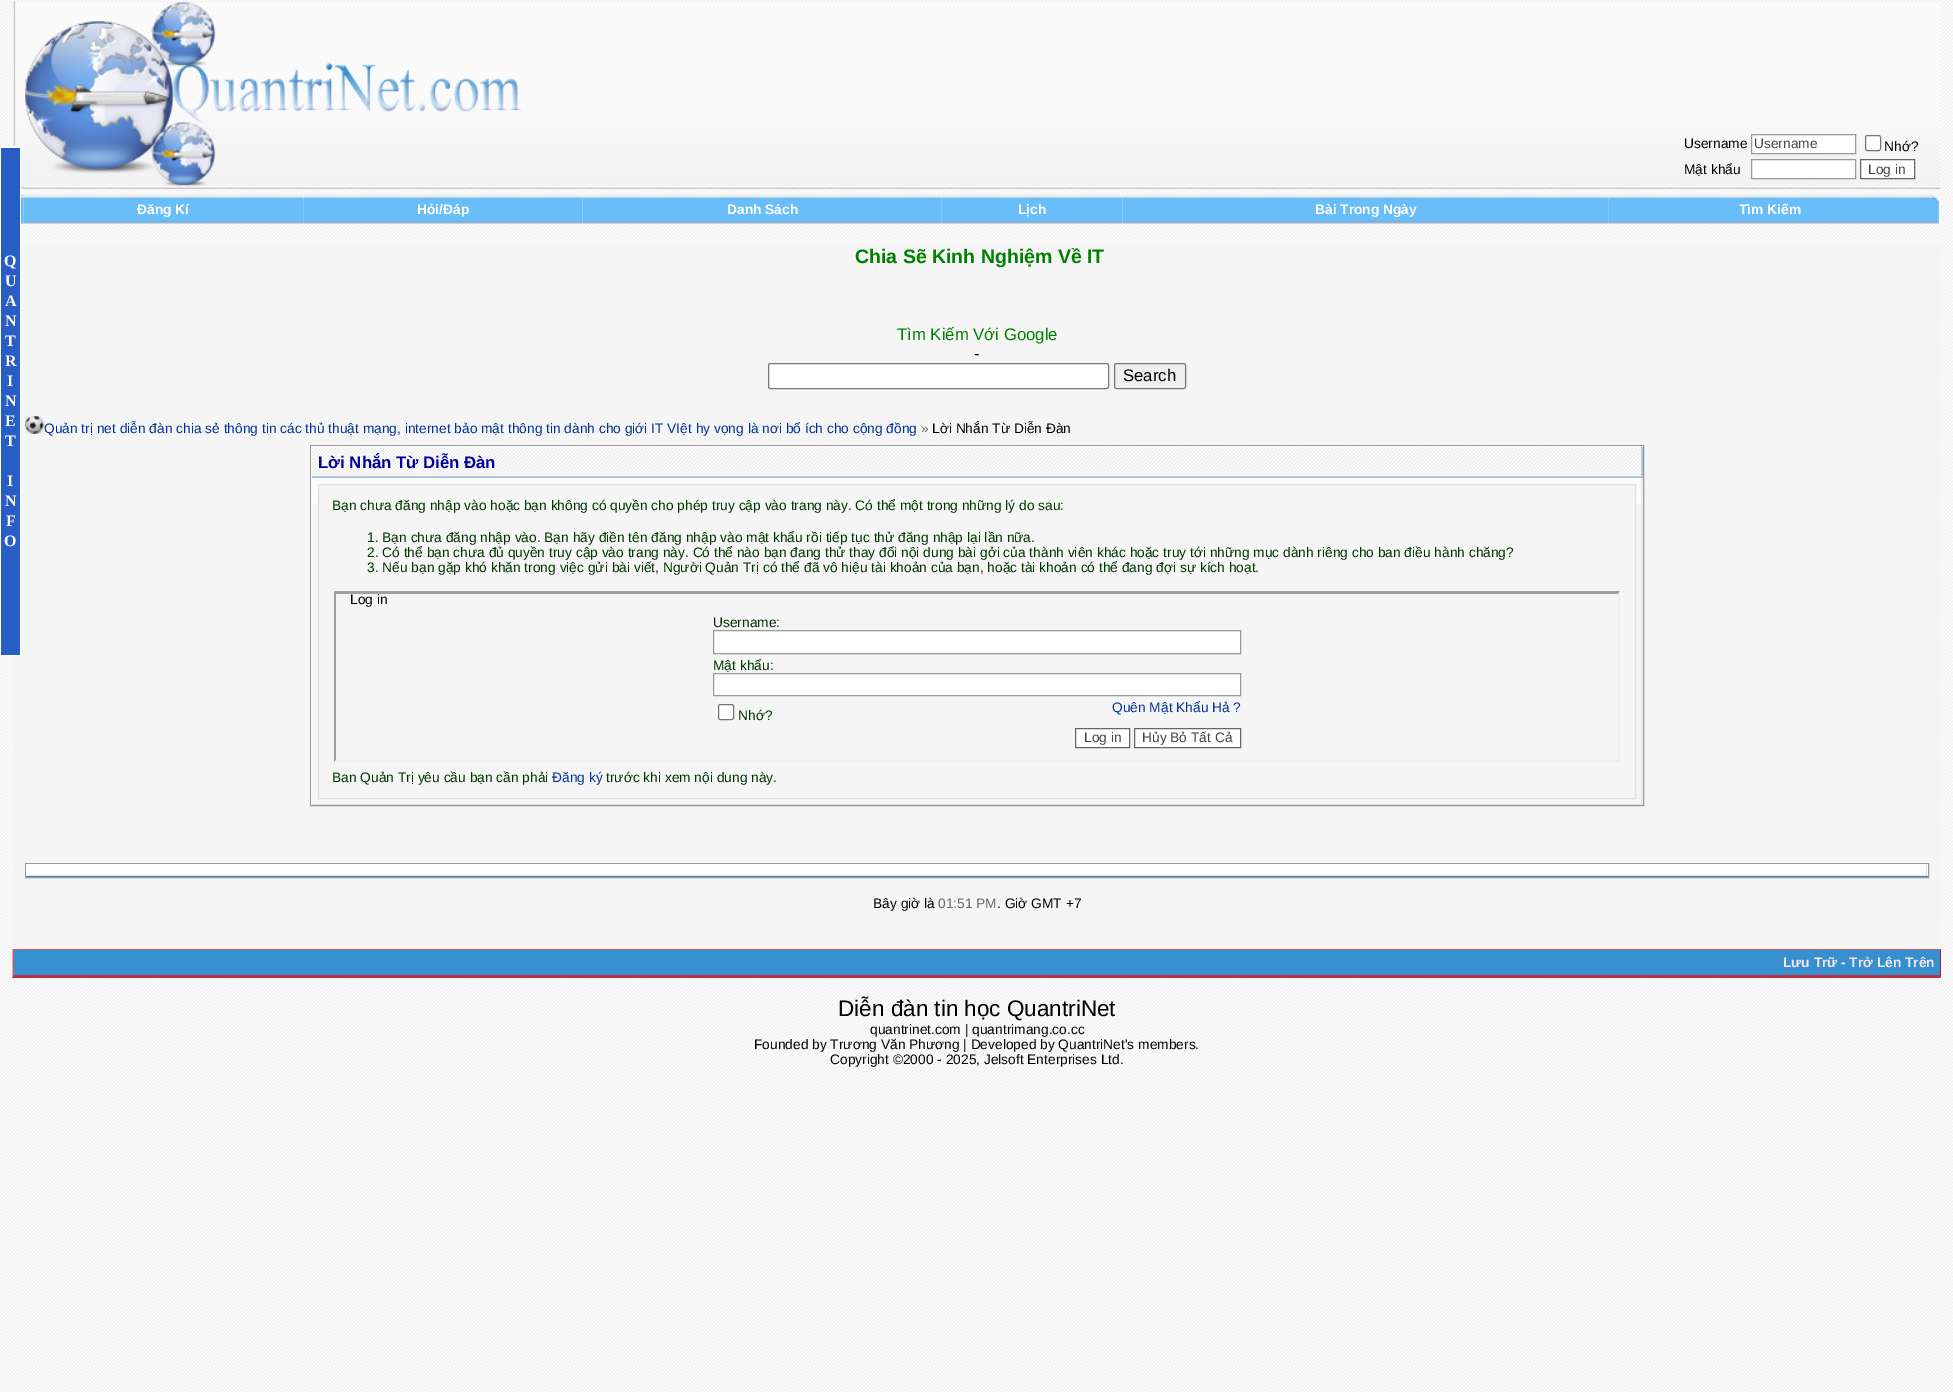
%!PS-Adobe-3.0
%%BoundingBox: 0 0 1953 1392
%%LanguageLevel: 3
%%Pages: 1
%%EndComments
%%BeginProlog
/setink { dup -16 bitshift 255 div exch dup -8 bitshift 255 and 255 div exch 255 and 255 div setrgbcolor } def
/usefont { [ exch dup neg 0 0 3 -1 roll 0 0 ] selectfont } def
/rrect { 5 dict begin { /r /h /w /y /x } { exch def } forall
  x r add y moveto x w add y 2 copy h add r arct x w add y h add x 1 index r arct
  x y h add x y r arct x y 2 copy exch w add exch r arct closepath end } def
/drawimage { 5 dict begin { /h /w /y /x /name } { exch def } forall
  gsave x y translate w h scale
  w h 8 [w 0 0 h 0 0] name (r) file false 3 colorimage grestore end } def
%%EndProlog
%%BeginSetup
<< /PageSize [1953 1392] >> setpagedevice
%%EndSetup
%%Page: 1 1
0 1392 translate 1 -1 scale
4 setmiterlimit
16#FFFFFF setink
0 0 1953 1392 rectfill
(img1.raw) 0 0 1953 1392 drawimage
(img2.raw) 13 1 1927 188 drawimage
(img3.raw) 13 1 12 188 drawimage
(img4.raw) 25 2 497 185 drawimage
/LiberationSans-Regular 13.75 usefont
16#000000 setink
1684 148 moveto (Username) show
16#FFFFFF setink
1751.5 134.5 moveto 1855.5 134.5 lineto 1855.5 153.5 lineto 1751.5 153.5 lineto closepath gsave fill grestore
16#989898 setink
stroke
16#444444 setink
1754 148 moveto (Username) show
16#FFFFFF setink
1865.5 135.5 15 15 2 rrect gsave fill grestore
16#767676 setink
stroke
16#000000 setink
1884 151 moveto (Nhớ?) show
1684 174 moveto (Mật khẩu) show
16#FFFFFF setink
1751.5 159.5 moveto 1855.5 159.5 lineto 1855.5 178.5 lineto 1751.5 178.5 lineto closepath gsave fill grestore
16#989898 setink
stroke
16#FFFFFF setink
1860.5 159.5 moveto 1914.5 159.5 lineto 1914.5 178.5 lineto 1860.5 178.5 lineto closepath gsave fill grestore
16#666666 setink
stroke
16#444444 setink
1868 174 moveto (Log in) show
16#ECECEC setink
23 195 1907 3 rectfill
(img8.raw) 23 197 281 27 drawimage
(img5.raw) 21 195 3 3 drawimage
(img6.raw) 1930 195 6 3 drawimage
(img7.raw) 21 197 3 27 drawimage
/LiberationSans-Bold 13.75 usefont
16#FFFFFF setink
137 214 moveto (Đăng Kí) show
(img9.raw) 303 197 280 27 drawimage
417 214 moveto (Hỏi/Đáp) show
(img10.raw) 582 197 360 27 drawimage
727 214 moveto (Danh Sách) show
(img11.raw) 941 197 182 27 drawimage
1018 214 moveto (Lịch) show
(img12.raw) 1122 197 487 27 drawimage
1315 214 moveto (Bài Trong Ngày) show
(img13.raw) 1608 197 322 27 drawimage
1739 214 moveto (Tìm Kiếm) show
(img14.raw) 1930 197 11 27 drawimage
[
    [13 244 1928 705 16#F5F5F5]
    [0 146 21 510 16#FFFFFF]
    [1 148 19 507 16#295DC6]
] { aload pop setink rectfill } forall
/LiberationSerif-Bold 16 usefont
16#FFFFFF setink
[
    [(Q) 4 266]
    [(U) 5 286]
    [(A) 5 306]
    [(N) 5 326]
    [(T) 5 346]
    [(R) 5 366]
    [(I) 7 386]
    [(N) 5 406]
    [(E) 5 426]
    [(T) 5 446]
    [(I) 7 486]
    [(N) 5 506]
    [(F) 6 526]
    [(O) 4 546]
] { aload pop moveto show } forall
/LiberationSans-Bold 19.5 usefont
16#008000 setink
855 263 moveto (Chia Sẽ Kinh Nghiệm Về IT) show
/LiberationSans-Regular 16.75 usefont
897 340 moveto (Tìm Kiếm Với Google) show
16#000000 setink
974 359 moveto (-) show
16#FFFFFF setink
768.5 363.5 340 25 2 rrect gsave fill grestore
16#767676 setink
stroke
16#EFEFEF setink
1114.5 363.5 71 25 2 rrect gsave fill grestore
16#767676 setink
stroke
16#000000 setink
1123 381 moveto (Search) show
(img15.raw) 25 416 19 18 drawimage
/LiberationSans-Regular 13.75 usefont
16#003399 setink
44 433 moveto (Quản trị net diễn đàn chia sẻ thông tin các thủ thuật mạng, internet bảo mật thông tin dành cho giới IT VIệt hy vọng là nơi bổ ích cho cộng đồng) show
16#666666 setink
921 433 moveto (») show
16#000000 setink
932 433 moveto (Lời Nhắn Từ Diễn Ðàn) show
16#368FCE setink
312 447 1331 31 rectfill
16#989898 setink
310.5 445.5 1333 360 rectstroke
(img16.raw) 312 447 1331 31 drawimage
[
    [311 446 1332 1 16#FFFFFF]
    [1641 446 1 32 16#CCCCCC]
    [311 476 1332 1 16#CCCCCC]
    [311 446 1 32 16#FFFFFF]
] { aload pop setink rectfill } forall
/LiberationSans-Bold 16.75 usefont
16#000099 setink
318 468 moveto (Lời Nhắn Từ Diễn Ðàn) show
(img17.raw) 312 479 1331 25 drawimage
[
    [311 478 1332 1 16#FFFFFF]
    [1641 478 1 327 16#E0E0E0]
    [311 804 1332 1 16#E0E0E0]
    [311 478 1 327 16#FFFFFF]
    [319 485 1316 19 16#F5F5F5]
] { aload pop setink rectfill } forall
(img18.raw) 317 485 1 18 drawimage
16#E1E1E1 setink
318.5 484.5 1317 314 rectstroke
/LiberationSans-Regular 13.75 usefont
16#003300 setink
[
    [(Bạn chưa đăng nhập vào hoặc bạn không có quyền cho phép truy cập vào trang này. Có thể một trong những lý do sau:) 332 510]
    [(1. Bạn chưa đăng nhập vào. Bạn hãy điền tên đăng nhập vào mật khẩu rồi tiếp tục thử đăng nhập lại lần nữa.) 367 542]
    [(2. Có thể bạn chưa đủ quyền truy cập vào trang này. Có thể nào bạn đang thử thay đổi nội dung bài gởi của thành viên khác hoặc truy tới những mục dành riêng cho ban điều hành chăng?) 367 557]
    [(3. Nếu bạn gặp khó khăn trong việc gửi bài viết, Người Quản Trị có thể đã vô hiệu tài khoản của bạn, hoặc tài khoản có thể đang đợi sự kích hoạt.) 367 572]
] { aload pop moveto show } forall
16#9F9F9F setink
334 591 moveto 1620 591 lineto 1618 594 lineto 336 594 lineto closepath fill
16#EFEFEF setink
1620 591 moveto 1620 762 lineto 1618 760 lineto 1618 594 lineto closepath fill
1620 762 moveto 334 762 lineto 336 760 lineto 1618 760 lineto closepath fill
16#9F9F9F setink
334 762 moveto 334 591 lineto 336 594 lineto 336 760 lineto closepath fill
16#000000 setink
350 604 moveto (Log in) show
16#003300 setink
713 627 moveto (Username:) show
16#FFFFFF setink
713.5 630.5 moveto 1240.5 630.5 lineto 1240.5 653.5 lineto 713.5 653.5 lineto closepath gsave fill grestore
16#989898 setink
stroke
16#003300 setink
713 670 moveto (Mật khẩu:) show
16#FFFFFF setink
713.5 673.5 moveto 1240.5 673.5 lineto 1240.5 695.5 lineto 713.5 695.5 lineto closepath gsave fill grestore
16#989898 setink
stroke
16#FFFFFF setink
718.5 704.5 15 15 2 rrect gsave fill grestore
16#767676 setink
stroke
16#003300 setink
738 720 moveto (Nhớ?) show
16#003399 setink
1112 712 moveto (Quên Mật Khẩu Hả ?) show
16#FFFFFF setink
1075.5 728.5 moveto 1129.5 728.5 lineto 1129.5 747.5 lineto 1075.5 747.5 lineto closepath gsave fill grestore
16#666666 setink
stroke
16#444444 setink
1084 742 moveto (Log in) show
16#FFFFFF setink
1134.5 728.5 moveto 1240.5 728.5 lineto 1240.5 747.5 lineto 1134.5 747.5 lineto closepath gsave fill grestore
16#666666 setink
stroke
16#444444 setink
1142 742 moveto (Hủy Bỏ Tất Cả) show
16#003300 setink
332 782 moveto (Ban Quản Trị yêu cầu bạn cần phải) show
16#003399 setink
552 782 moveto (Đăng ký) show
16#003300 setink
606 782 moveto (trước khi xem nội dung này.) show
16#368FCE setink
26 876 1902 1 rectfill
16#989898 setink
25.5 863.5 1903 14 rectstroke
[
    [27 864 1901 11 16#FFFFFF]
    [1926 864 1 12 16#E0E0E0]
    [26 875 1902 1 16#E0E0E0]
    [26 864 1 12 16#FFFFFF]
] { aload pop setink rectfill } forall
16#000000 setink
873 908 moveto (Bây giờ là) show
16#666666 setink
938 908 moveto (01:51 PM) show
16#000000 setink
997 908 moveto (. Giờ GMT +7) show
16#368FCE setink
14 950 1926 25 rectfill
16#D25A69 setink
13 949 1928 1 rectfill
16#A72431 setink
1941 949 moveto 1941 977.5 lineto 1940 975 lineto 1940 950 lineto closepath fill
16#BB313F setink
1941 978 moveto 12 978 lineto 14 975 lineto 1940 975 lineto closepath fill
16#D25A69 setink
12.5 977.5 moveto 12.5 949 lineto 14 950 lineto 14 975 lineto closepath fill
/LiberationSans-Bold 13.75 usefont
16#F7E6E9 setink
1783 967 moveto (Lưu Trữ - Trở Lên Trên) show
/LiberationSans-Regular 22.5 usefont
16#000000 setink
838 1016 moveto (Diễn đàn tin học QuantriNet) show
/LiberationSans-Regular 13.75 usefont
[
    [(quantrinet.com | quantrimang.co.cc) 870 1034]
    [(Founded by Trương Văn Phương | Developed by QuantriNet's members.) 754 1049]
    [(Copyright ©2000 - 2025, Jelsoft Enterprises Ltd.) 830 1064]
] { aload pop moveto show } forall
showpage
%%EOF
